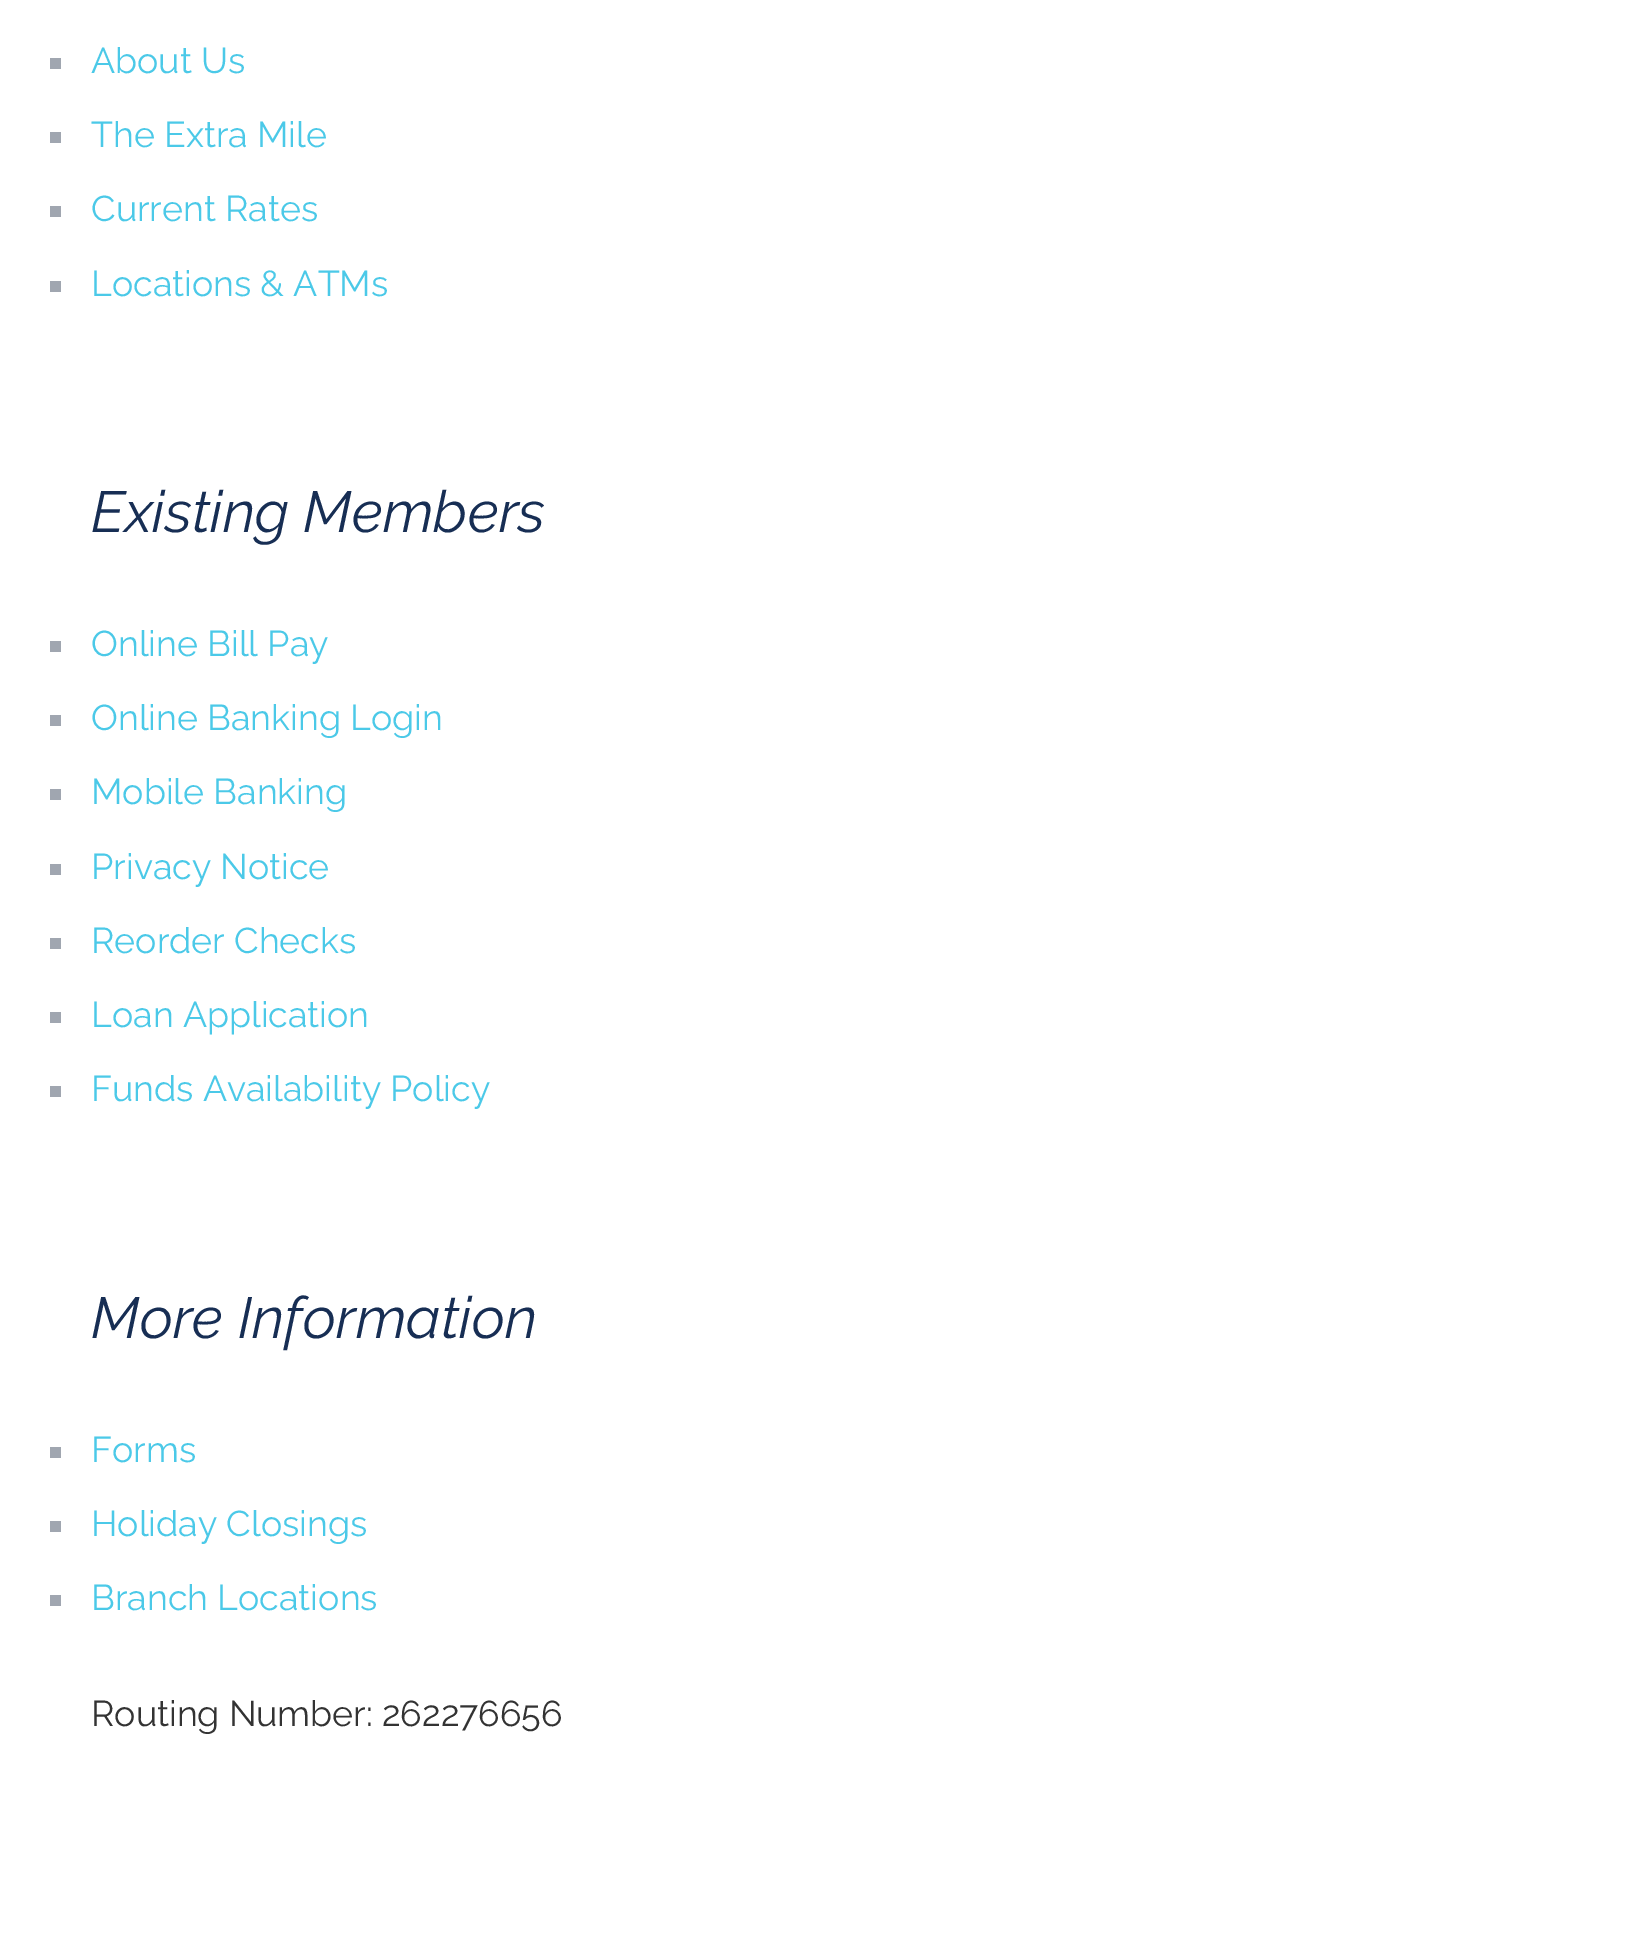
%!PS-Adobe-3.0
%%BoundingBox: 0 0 1633 1952
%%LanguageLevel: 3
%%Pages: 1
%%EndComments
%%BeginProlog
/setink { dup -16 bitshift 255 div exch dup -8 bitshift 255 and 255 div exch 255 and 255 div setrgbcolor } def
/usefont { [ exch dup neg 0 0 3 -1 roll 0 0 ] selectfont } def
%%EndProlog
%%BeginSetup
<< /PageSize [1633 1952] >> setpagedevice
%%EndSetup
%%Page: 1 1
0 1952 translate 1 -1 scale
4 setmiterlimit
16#FFFFFF setink
0 0 1633 1952 rectfill
16#A0A6B0 setink
50 58 11 11 rectfill
/Raleway-Regular 35.75 usefont
16#4BC9E8 setink
91 73 moveto (About Us) show
16#A0A6B0 setink
50 132 11 11 rectfill
16#4BC9E8 setink
91 147 moveto (The Extra Mile) show
16#A0A6B0 setink
50 206 11 11 rectfill
16#4BC9E8 setink
91 221 moveto (Current Rates) show
16#A0A6B0 setink
50 281 11 11 rectfill
16#4BC9E8 setink
91 296 moveto (Locations & ATMs) show
/Raleway-ThinItalic 57.75 usefont
16#172E54 setink
91 532 moveto (Existing Members) show
16#A0A6B0 setink
50 641 11 11 rectfill
/Raleway-Regular 35.75 usefont
16#4BC9E8 setink
91 656 moveto (Online Bill Pay) show
16#A0A6B0 setink
50 715 11 11 rectfill
16#4BC9E8 setink
91 730 moveto (Online Banking Login) show
16#A0A6B0 setink
50 789 11 11 rectfill
16#4BC9E8 setink
91 804 moveto (Mobile Banking) show
16#A0A6B0 setink
50 864 11 11 rectfill
16#4BC9E8 setink
91 879 moveto (Privacy Notice) show
16#A0A6B0 setink
50 938 11 11 rectfill
16#4BC9E8 setink
91 953 moveto (Reorder Checks) show
16#A0A6B0 setink
50 1012 11 11 rectfill
16#4BC9E8 setink
91 1027 moveto (Loan Application) show
16#A0A6B0 setink
50 1086 11 11 rectfill
16#4BC9E8 setink
91 1101 moveto (Funds Availability Policy) show
/Raleway-ThinItalic 57.75 usefont
16#172E54 setink
91 1338 moveto (More Information) show
16#A0A6B0 setink
50 1447 11 11 rectfill
/Raleway-Regular 35.75 usefont
16#4BC9E8 setink
91 1462 moveto (Forms) show
16#A0A6B0 setink
50 1521 11 11 rectfill
16#4BC9E8 setink
91 1536 moveto (Holiday Closings) show
16#A0A6B0 setink
50 1595 11 11 rectfill
16#4BC9E8 setink
91 1610 moveto (Branch Locations) show
16#333333 setink
91 1726 moveto (Routing Number: 262276656) show
showpage
%%EOF
